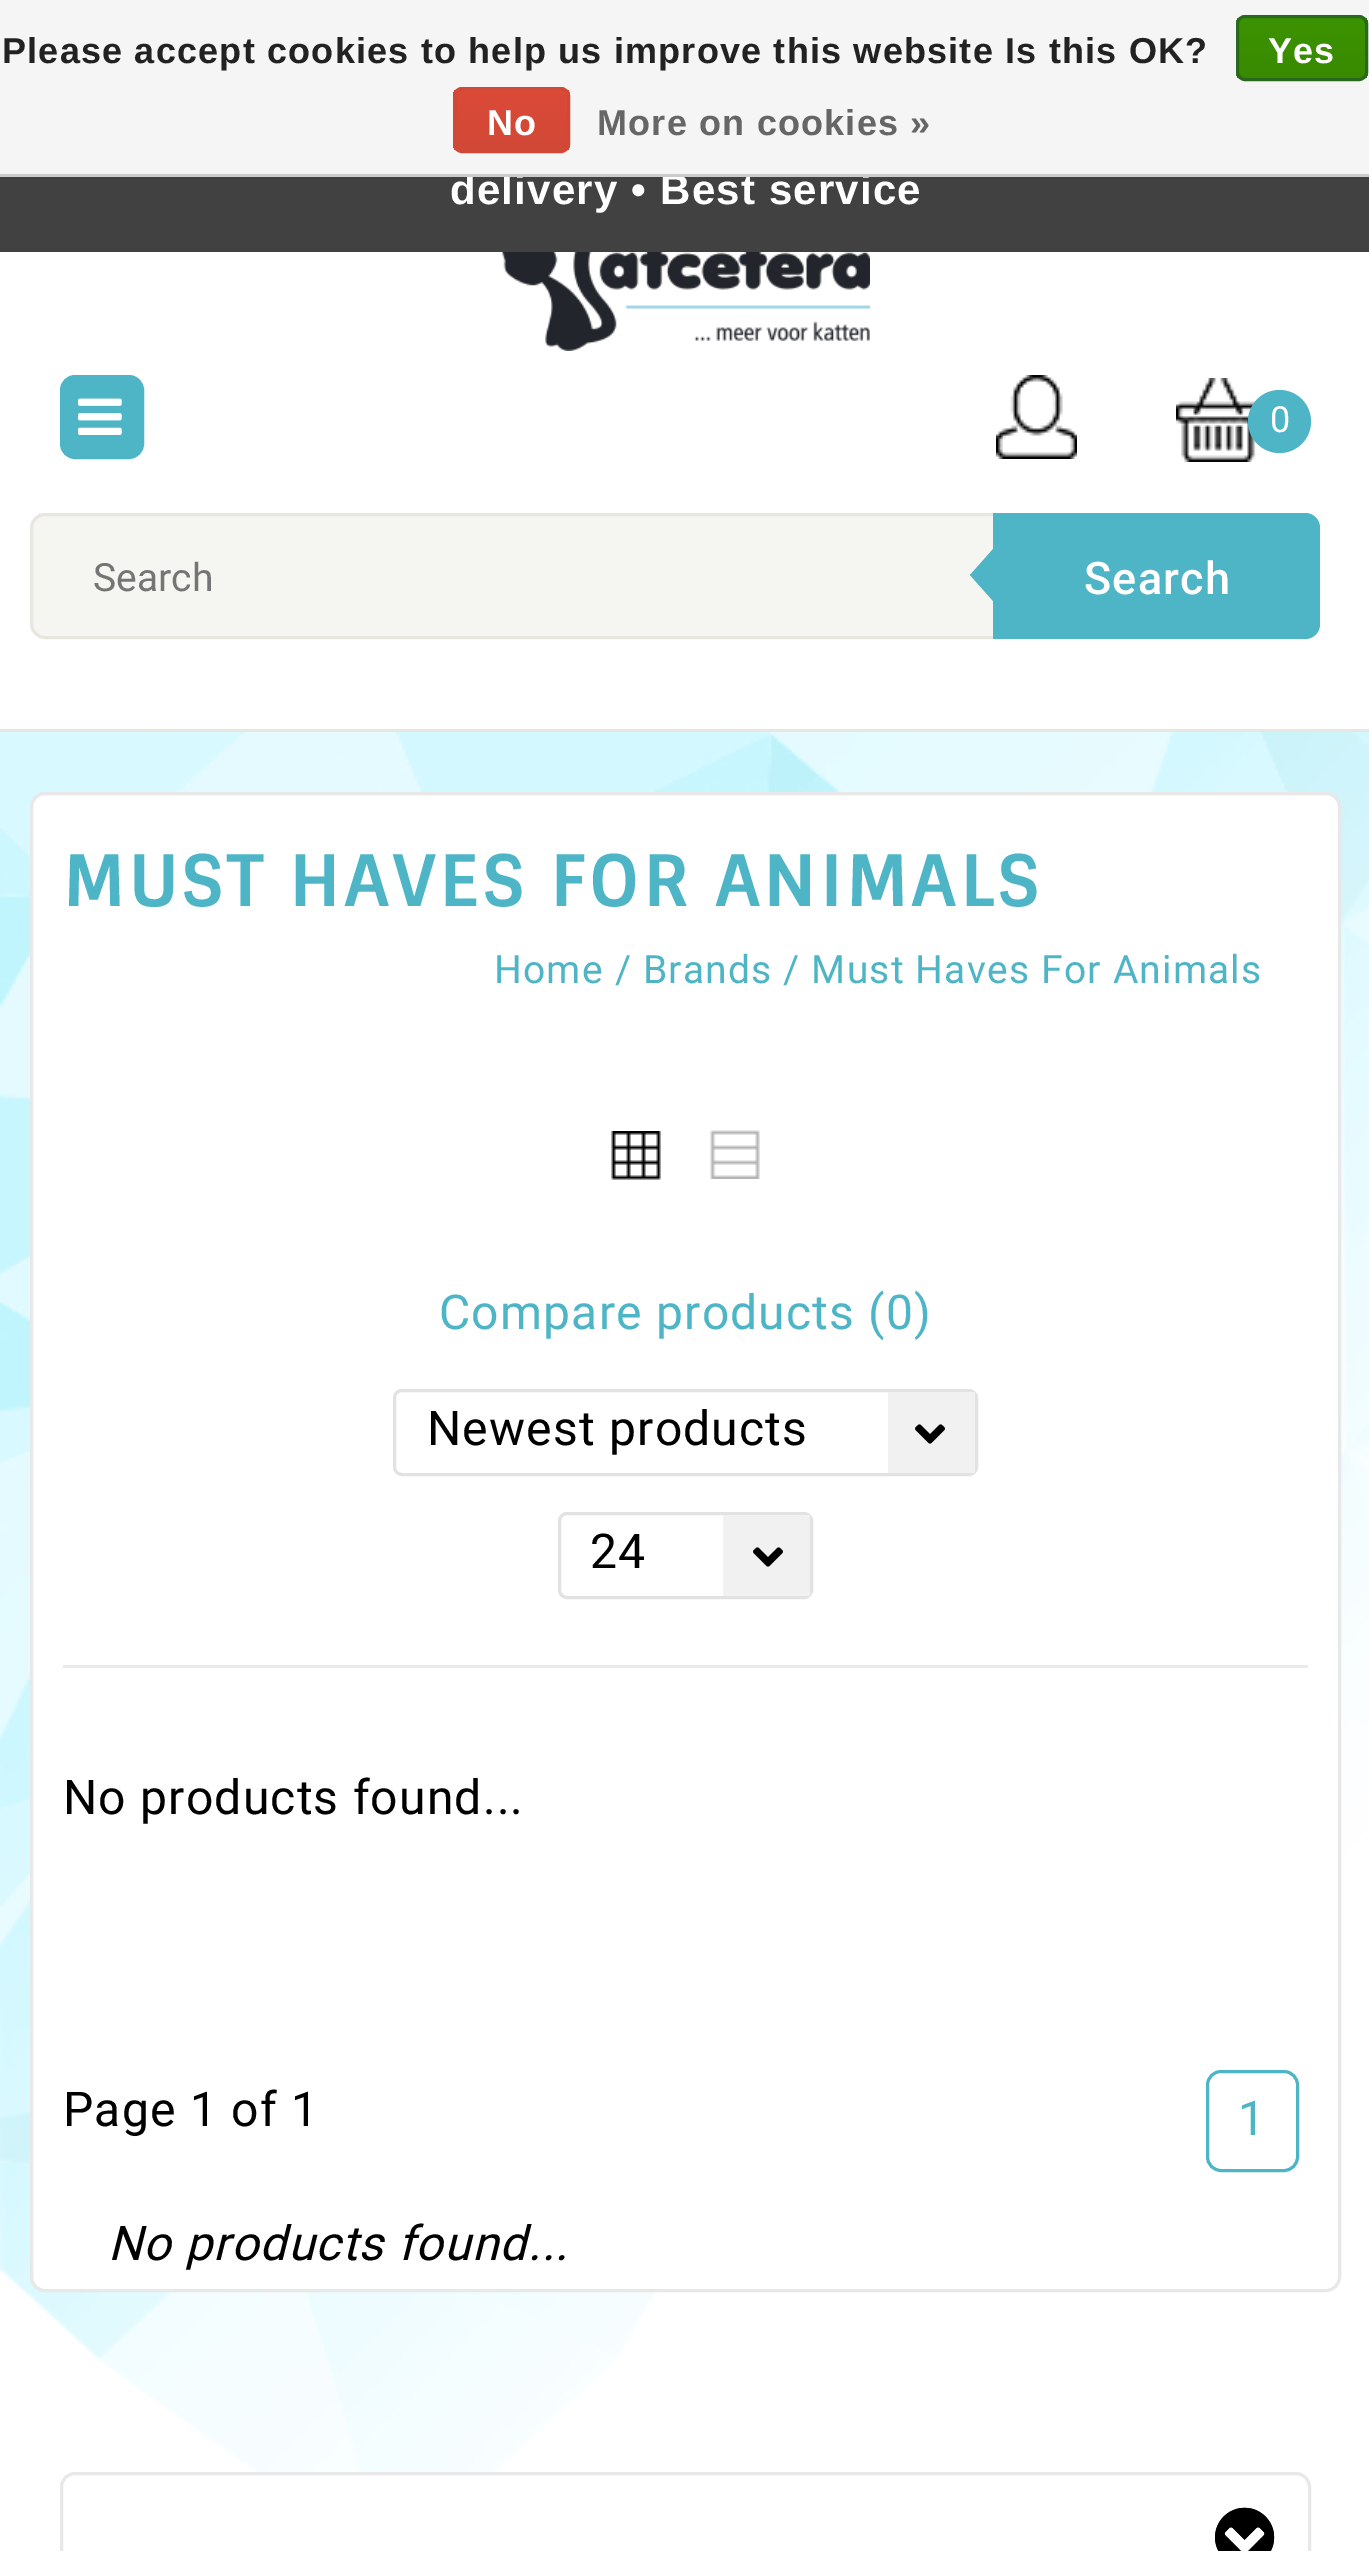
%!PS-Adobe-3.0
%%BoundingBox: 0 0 1369 2551
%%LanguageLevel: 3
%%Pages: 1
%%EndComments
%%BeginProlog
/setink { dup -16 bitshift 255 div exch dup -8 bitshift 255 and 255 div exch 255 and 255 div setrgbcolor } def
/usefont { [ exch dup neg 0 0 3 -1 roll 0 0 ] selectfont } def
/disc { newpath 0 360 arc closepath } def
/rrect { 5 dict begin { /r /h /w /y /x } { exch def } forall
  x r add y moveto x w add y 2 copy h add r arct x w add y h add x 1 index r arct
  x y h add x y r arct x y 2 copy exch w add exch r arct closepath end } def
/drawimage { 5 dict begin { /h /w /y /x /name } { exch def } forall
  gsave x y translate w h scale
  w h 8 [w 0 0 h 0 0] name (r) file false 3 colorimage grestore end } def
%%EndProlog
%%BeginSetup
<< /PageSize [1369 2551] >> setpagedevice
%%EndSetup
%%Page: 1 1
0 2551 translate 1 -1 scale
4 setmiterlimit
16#FFFFFF setink
0 0 1369 2551 rectfill
16#414141 setink
0 177 1369 75 rectfill
/LiberationSans-Bold 42 usefont
16#FFFFFF setink
450 204 moveto 1.2 0 (delivery • Best service) ashow
16#F5F5F5 setink
0 0 1369 174 rectfill
16#CCCCCC setink
0 174 1369 3 rectfill
/LiberationSans-Bold 36 usefont
16#222222 setink
2 63 moveto 1.2 0 (Please accept cookies to help us improve this website Is this OK?) ashow
gsave
1236 15 132 66 9 rrect clip newpath
gsave 1236 18 moveto 1368 18 lineto 1368 78 lineto 1236 78 lineto closepath clip newpath
<< /ShadingType 2 /ColorSpace /DeviceRGB /Coords [1302 18 1302 78] /Extend [true true] /Function << /FunctionType 2 /Domain [0 1] /C0 [0.235 0.576 0] /C1 [0.224 0.541 0] /N 1 >> >> shfill grestore
grestore
16#29691D setink
3 setlinewidth
1237.5 16.5 129 63 7.5 rrect stroke
16#FFFFFF setink
1268 63 moveto 1.2 0 (Yes) ashow
gsave
453 87 117 66 9 rrect clip newpath
gsave 453 90 moveto 570 90 lineto 570 150 lineto 453 150 lineto closepath clip newpath
<< /ShadingType 2 /ColorSpace /DeviceRGB /Coords [512 90 512 150] /Extend [true true] /Function << /FunctionType 2 /Domain [0 1] /C0 [0.863 0.29 0.22] /C1 [0.82 0.282 0.212] /N 1 >> >> shfill grestore
grestore
16#D14836 setink
454.5 88.5 114 63 7.5 rrect stroke
16#FFFFFF setink
487 135 moveto 1.2 0 (No) ashow
16#666666 setink
597 135 moveto 1.2 0 (More on cookies ») ashow
(img1.raw) 0 732 1369 1740 drawimage
16#FFFFFF setink
31.5 793.5 1308 1497 13.5 rrect gsave fill grestore
16#E8E8E8 setink
stroke
/Sintony-Bold 70.75 usefont
16#4EB5C7 setink
63 906 moveto 3 0 (MUST HAVES FOR ANIMALS) ashow
/Roboto-Regular 39 usefont
494 983 moveto 1.2 0 (Home / Brands / Must Haves For Animals) ashow
16#EAEAEA setink
63 1665 1245 3 rectfill
(img2.raw) 611 1131 50 49 drawimage
(img3.raw) 710 1130 50 49 drawimage
/Roboto-Regular 48 usefont
16#4EB5C7 setink
439 1329 moveto 1.2 0 (Compare products \(0\)) ashow
16#E2E2E2 setink
394.5 1390.5 582 84 7.5 rrect stroke
16#000000 setink
427 1445 moveto 1.2 0 (Newest products) ashow
16#F1F1F1 setink
888 1392 87 81 rectfill
(img4.raw) 915 1424 30 20 drawimage
16#E2E2E2 setink
559.5 1513.5 252 84 7.5 rrect stroke
16#000000 setink
590 1568 moveto 1.2 0 (24) ashow
16#F1F1F1 setink
723 1515 87 81 rectfill
(img4.raw) 753 1547 30 20 drawimage
16#000000 setink
63 1814 moveto 1.2 0 (No products found...) ashow
63 2126 moveto 1.2 0 (Page 1 of 1) ashow
16#4EB5C7 setink
1207.5 2071.5 90 99 13.5 rrect stroke
1238 2135 moveto 1.2 0 (1) ashow
/Roboto-Italic 48 usefont
16#000000 setink
108 2260 moveto 1.2 0 (No products found...) ashow
16#E8E8E8 setink
61.5 2473.5 1248 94 13.5 rrect stroke
(img5.raw) 1215 2507 60 44 drawimage
(img6.raw) 1215 2507 60 44 drawimage
16#E8E7DF setink
0 729 1369 3 rectfill
(img7.raw) 502 252 368 99 drawimage
16#4EB5C7 setink
61.5 376.5 81 81 13.5 rrect gsave fill grestore
stroke
(img8.raw) 78 398 44 37 drawimage
(img9.raw) 996 375 81 84 drawimage
(img10.raw) 1176 378 80 84 drawimage
1279.5 421.5 31.5 disc fill
/Roboto-Regular 36 usefont
16#FFFFFF setink
1270 432 moveto 1.2 0 (0) ashow
16#F5F5F1 setink
45 514.5 moveto 994.5 514.5 lineto 994.5 637.5 lineto 45 637.5 lineto 37.5 637.5 31.5 631.5 31.5 624 curveto 31.5 528 lineto 31.5 520.5 37.5 514.5 45 514.5 curveto closepath gsave fill grestore
16#E8E7DF setink
stroke
/Roboto-Regular 39 usefont
16#757575 setink
93 591 moveto (Search) show
16#4EB5C7 setink
993 513 moveto 1305 513 lineto 1313.5 513 1320 519.5 1320 528 curveto 1320 624 lineto 1320 632.5 1313.5 639 1305 639 curveto 993 639 lineto closepath fill
994 548 moveto 994 602 lineto 970 575 lineto closepath fill
/Roboto-Medium 45 usefont
16#FFFFFF setink
1084 594 moveto 1.2 0 (Search) ashow
showpage
%%EOF
